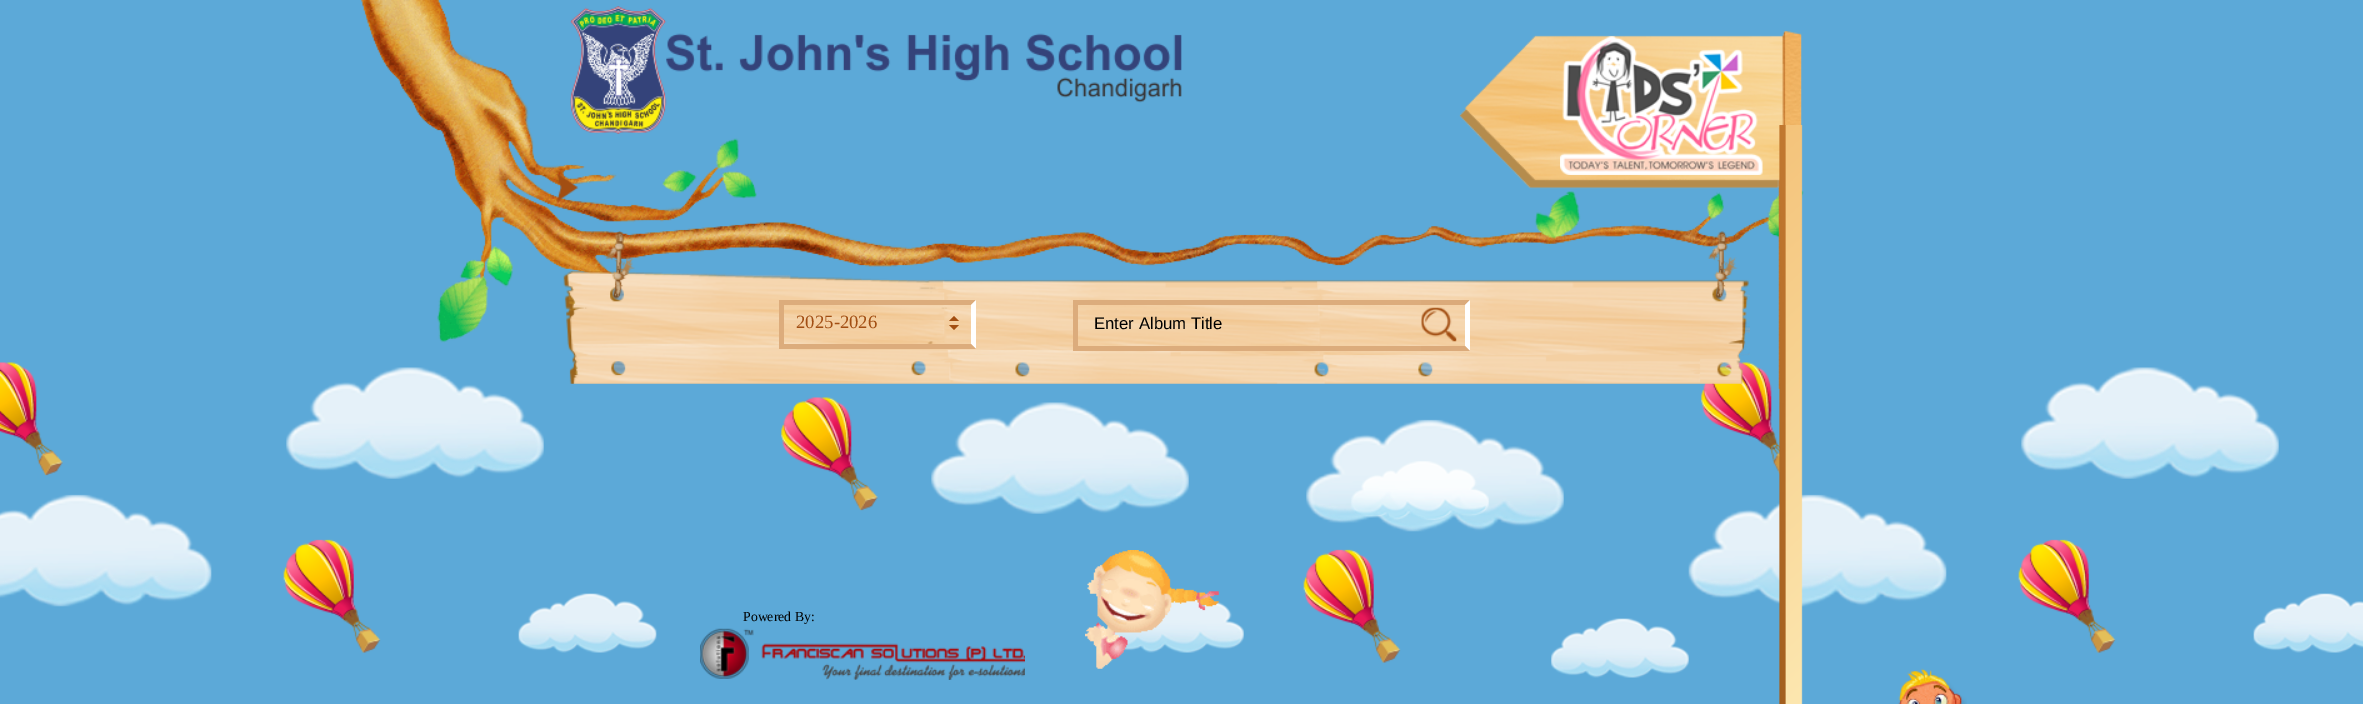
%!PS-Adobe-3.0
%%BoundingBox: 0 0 2363 704
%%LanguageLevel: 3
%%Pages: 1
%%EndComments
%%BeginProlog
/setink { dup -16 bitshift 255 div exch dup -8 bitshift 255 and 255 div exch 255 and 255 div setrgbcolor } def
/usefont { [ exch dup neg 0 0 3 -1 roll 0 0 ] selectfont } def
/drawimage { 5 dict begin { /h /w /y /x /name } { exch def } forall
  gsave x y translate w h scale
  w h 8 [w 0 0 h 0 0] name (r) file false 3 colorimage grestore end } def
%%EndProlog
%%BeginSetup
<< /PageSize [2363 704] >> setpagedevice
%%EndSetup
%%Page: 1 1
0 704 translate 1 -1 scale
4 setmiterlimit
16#5CA9D8 setink
0 0 2363 704 rectfill
(img1.raw) 361 0 1443 343 drawimage
(img4.raw) 1459 31 343 163 drawimage
(img2.raw) 1560 36 203 139 drawimage
(img3.raw) 556 174 23 28 drawimage
(img5.raw) 570 6 612 128 drawimage
(img11.raw) 0 362 2363 316 drawimage
(img6.raw) 1778 193 24 196 drawimage
(img7.raw) 563 271 1187 113 drawimage
(img8.raw) 605 231 30 68 drawimage
(img9.raw) 1707 231 31 68 drawimage
16#DCAC7C setink
779 300 moveto 976 300 lineto 971 305 lineto 784 305 lineto closepath fill
16#FFFFFF setink
976 300 moveto 976 349 lineto 971 344 lineto 971 305 lineto closepath fill
16#DCAC7C setink
976 349 moveto 779 349 lineto 784 344 lineto 971 344 lineto closepath fill
779 300 5 49 rectfill
/LiberationSerif-Regular 18.75 usefont
16#A24E12 setink
796 328 moveto (2025-2026) show
959 321 moveto 949 321 lineto 954 316 lineto closepath 949 325 moveto 959 325 lineto 954 330 lineto closepath fill
[
    [1073 300 348 5 16#DCAC7C]
    [1073 346 348 5 16#DCAC7C]
    [1073 300 5 51 16#DCAC7C]
] { aload pop setink rectfill } forall
/LiberationSans-Regular 16.75 usefont
16#000000 setink
1094 329 moveto (Enter Album Title) show
16#DBAA7A setink
1421 300 moveto 1470 300 lineto 1465 305 lineto 1421 305 lineto closepath fill
16#FFFFFF setink
1470 300 moveto 1470 351 lineto 1465 346 lineto 1465 305 lineto closepath fill
16#DBAA7A setink
1470 351 moveto 1421 351 lineto 1421 346 lineto 1465 346 lineto closepath fill
(img10.raw) 1421 307 36 35 drawimage
/LiberationSerif-Regular 13.75 usefont
16#000000 setink
743 621 moveto (Powered By:) show
(img12.raw) 700 628 325 52 drawimage
(img13.raw) 1779 125 24 579 drawimage
(img14.raw) 1085 550 134 119 drawimage
(img15.raw) 1898 668 69 36 drawimage
showpage
%%EOF
